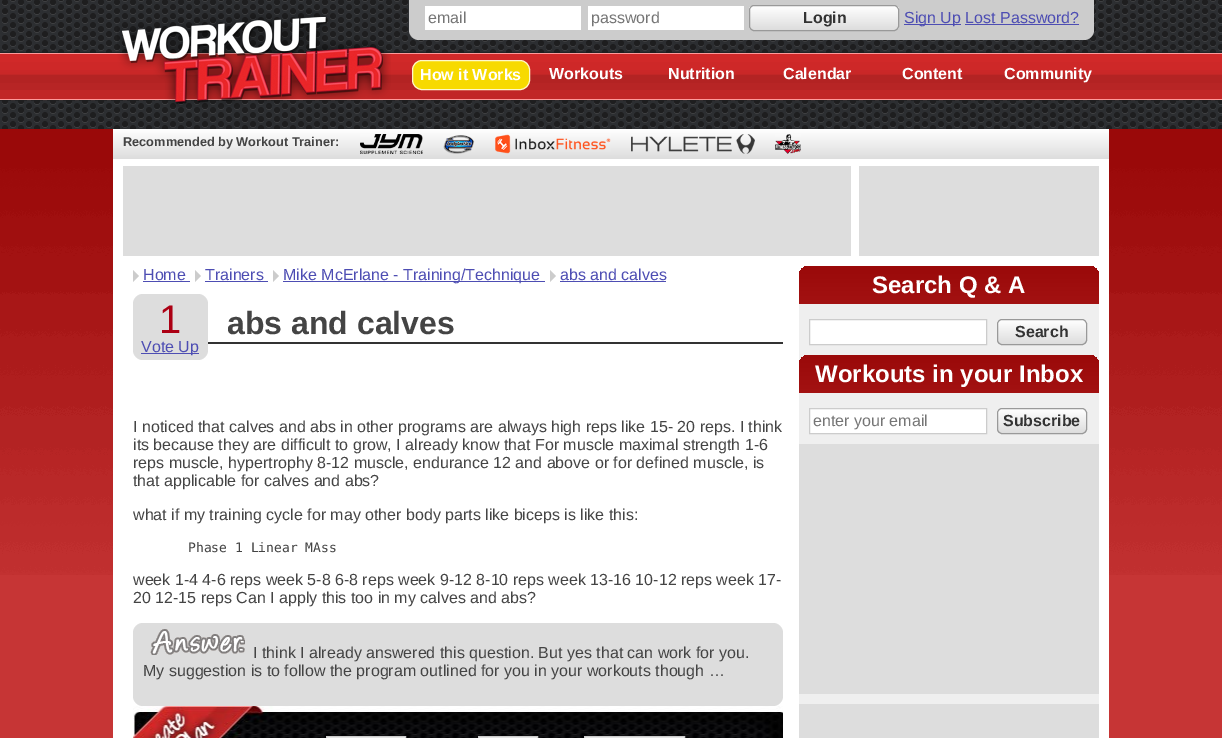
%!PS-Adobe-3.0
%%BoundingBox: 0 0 1222 738
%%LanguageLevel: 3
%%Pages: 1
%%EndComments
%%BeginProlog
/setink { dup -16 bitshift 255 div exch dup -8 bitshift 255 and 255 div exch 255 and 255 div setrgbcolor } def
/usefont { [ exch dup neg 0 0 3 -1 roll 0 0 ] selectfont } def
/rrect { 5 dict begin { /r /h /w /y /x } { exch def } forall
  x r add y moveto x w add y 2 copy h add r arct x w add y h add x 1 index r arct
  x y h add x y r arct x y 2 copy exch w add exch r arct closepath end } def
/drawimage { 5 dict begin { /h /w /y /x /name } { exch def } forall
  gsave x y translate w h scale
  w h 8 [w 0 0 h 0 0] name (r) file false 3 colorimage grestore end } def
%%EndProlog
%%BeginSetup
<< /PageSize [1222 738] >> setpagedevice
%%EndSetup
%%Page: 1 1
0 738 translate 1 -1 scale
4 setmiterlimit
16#C63535 setink
0 0 1222 738 rectfill
(img1.raw) 0 0 1222 575 drawimage
16#FFFFFF setink
113 159 996 579 rectfill
(img2.raw) 113 0 996 129 drawimage
(img3.raw) 117 10 274 97 drawimage
16#CCCCCC setink
409 0 moveto 1094 0 lineto 1094 30 lineto 1094 35.5 1089.5 40 1084 40 curveto 419 40 lineto 413.5 40 409 35.5 409 30 curveto closepath fill
16#FFFFFF setink
425 6 156 24 rectfill
/LiberationSans-Regular 16 usefont
16#757575 setink
428 23 moveto (email) show
16#FFFFFF setink
588 6 156 24 rectfill
16#757575 setink
591 23 moveto (password) show
gsave
749 5 150 26 5 rrect clip newpath
gsave 749 6 moveto 899 6 lineto 899 30 lineto 749 30 lineto closepath clip newpath
<< /ShadingType 2 /ColorSpace /DeviceRGB /Coords [824 6 824 30] /Extend [true true] /Function << /FunctionType 2 /Domain [0 1] /C0 [1 1 1] /C1 [0.867 0.867 0.867] /N 1 >> >> shfill grestore
grestore
16#999999 setink
749.5 5.5 149 25 4.5 rrect stroke
/LiberationSans-Bold 16 usefont
16#333333 setink
803 23 moveto (Login) show
16#4D4DB3 setink
904 24 57 1 rectfill
/LiberationSans-Regular 16 usefont
904 23 moveto (Sign Up Lost Password?) show
965 24 114 1 rectfill
16#F7DA00 setink
412.5 60.5 117 29 9.5 rrect gsave fill grestore
16#FFF9C9 setink
stroke
/LiberationSans-Bold 16 usefont
16#FFFFFF setink
[
    [(How it Works) 420 80]
    [(Workouts) 549 79]
    [(Nutrition) 668 79]
    [(Calendar) 783 79]
    [(Content) 902 79]
    [(Community) 1004 79]
] { aload pop moveto show } forall
gsave 113 129 moveto 1109 129 lineto 1109 159 lineto 113 159 lineto closepath clip newpath
<< /ShadingType 2 /ColorSpace /DeviceRGB /Coords [611 129 611 159] /Extend [true true] /Function << /FunctionType 2 /Domain [0 1] /C0 [1 1 1] /C1 [0.867 0.867 0.867] /N 1 >> >> shfill grestore
/LiberationSans-Bold 12.75 usefont
16#444444 setink
123 146 moveto (Recommended by Workout Trainer:) show
(img4.raw) 360 134 63 20 drawimage
(img5.raw) 443 135 32 19 drawimage
(img6.raw) 495 134 116 20 drawimage
(img7.raw) 631 134 124 20 drawimage
(img8.raw) 775 134 26 20 drawimage
16#DDDDDD setink
123 166 728 90 rectfill
859 166 240 90 rectfill
16#CCCCCC setink
133 282 moveto 133 270 lineto 139 276 lineto closepath fill
/LiberationSans-Regular 16 usefont
16#4D4DB3 setink
143 280 moveto (Home) show
143 281 47 1 rectfill
16#CCCCCC setink
195 282 moveto 195 270 lineto 201 276 lineto closepath fill
16#4D4DB3 setink
205 280 moveto (Trainers) show
205 281 63 1 rectfill
16#CCCCCC setink
273 282 moveto 273 270 lineto 279 276 lineto closepath fill
16#4D4DB3 setink
283 281 262 1 rectfill
283 280 moveto (Mike McErlane - Training/Technique) show
16#CCCCCC setink
550 282 moveto 550 270 lineto 556 276 lineto closepath fill
16#4D4DB3 setink
560 280 moveto (abs and calves) show
560 281 106 1 rectfill
16#DDDDDD setink
133 294 75 66 10 rrect fill
/LiberationSans-Regular 40 usefont
16#AC0014 setink
159 333 moveto (1) show
16#4D4DB3 setink
141 353 58 1 rectfill
/LiberationSans-Regular 16 usefont
141 352 moveto (Vote Up) show
16#333333 setink
208 342 575 2 rectfill
/LiberationSans-Bold 32 usefont
16#444444 setink
227 334 moveto (abs and calves) show
/LiberationSans-Regular 16 usefont
[
    [(I noticed that calves and abs in other programs are always high reps like 15- 20 reps. I think) 133 432]
    [(its because they are difficult to grow, I already know that For muscle maximal strength 1-6) 133 450]
    [(reps muscle, hypertrophy 8-12 muscle, endurance 12 and above or for defined muscle, is) 133 468]
    [(that applicable for calves and abs?) 133 486]
    [(what if my training cycle for may other body parts like biceps is like this:) 133 520]
] { aload pop moveto show } forall
/DejaVuSansMono-Regular 13 usefont
188 552 moveto (Phase 1 Linear MAss) show
/LiberationSans-Regular 16 usefont
133 585 moveto (week 1-4 4-6 reps week 5-8 6-8 reps week 9-12 8-10 reps week 13-16 10-12 reps week 17-) show
133 603 moveto (20 12-15 reps Can I apply this too in my calves and abs?) show
16#DDDDDD setink
133 623 650 83 10 rrect fill
(img9.raw) 150 629 95 26 drawimage
16#444444 setink
253 658 moveto (I think I already answered this question. But yes that can work for you.) show
143 676 moveto (My suggestion is to follow the program outlined for you in your workouts though …) show
(img10.raw) 133 706 650 32 drawimage
16#EFEFEF setink
326.5 736.5 moveto 405.5 736.5 lineto 405.5 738.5 lineto 326.5 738.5 lineto closepath gsave fill grestore
16#CCCCCC setink
stroke
16#EFEFEF setink
478.5 736.5 moveto 537.5 736.5 lineto 537.5 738.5 lineto 478.5 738.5 lineto closepath gsave fill grestore
16#CCCCCC setink
stroke
16#EFEFEF setink
584.5 736.5 moveto 684.5 736.5 lineto 684.5 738.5 lineto 584.5 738.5 lineto closepath gsave fill grestore
16#CCCCCC setink
stroke
16#EFEFEF setink
799 266 300 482 10 rrect fill
gsave 809 266 moveto 1089 266 lineto 1094.5 266 1099 270.5 1099 276 curveto 1099 304 lineto 799 304 lineto 799 276 lineto 799 270.5 803.5 266 809 266 curveto closepath clip newpath
<< /ShadingType 2 /ColorSpace /DeviceRGB /Coords [949 266 949 304] /Extend [true true] /Function << /FunctionType 2 /Domain [0 1] /C0 [0.604 0.035 0.035] /C1 [0.639 0.071 0.071] /N 1 >> >> shfill grestore
/LiberationSans-Bold 24 usefont
16#FFFFFF setink
872 293 moveto (Search Q & A) show
809.5 319.5 moveto 986.5 319.5 lineto 986.5 344.5 lineto 809.5 344.5 lineto closepath gsave fill grestore
16#CCCCCC setink
stroke
gsave
997 319 90 26 5 rrect clip newpath
gsave 997 320 moveto 1087 320 lineto 1087 344 lineto 997 344 lineto closepath clip newpath
<< /ShadingType 2 /ColorSpace /DeviceRGB /Coords [1042 320 1042 344] /Extend [true true] /Function << /FunctionType 2 /Domain [0 1] /C0 [1 1 1] /C1 [0.867 0.867 0.867] /N 1 >> >> shfill grestore
grestore
16#999999 setink
997.5 319.5 89 25 4.5 rrect stroke
/LiberationSans-Bold 16 usefont
16#333333 setink
1015 337 moveto (Search) show
gsave 809 355 moveto 1089 355 lineto 1094.5 355 1099 359.5 1099 365 curveto 1099 393 lineto 799 393 lineto 799 365 lineto 799 359.5 803.5 355 809 355 curveto closepath clip newpath
<< /ShadingType 2 /ColorSpace /DeviceRGB /Coords [949 355 949 393] /Extend [true true] /Function << /FunctionType 2 /Domain [0 1] /C0 [0.604 0.035 0.035] /C1 [0.639 0.071 0.071] /N 1 >> >> shfill grestore
/LiberationSans-Bold 24 usefont
16#FFFFFF setink
815 382 moveto (Workouts in your Inbox) show
809.5 408.5 moveto 986.5 408.5 lineto 986.5 433.5 lineto 809.5 433.5 lineto closepath gsave fill grestore
16#CCCCCC setink
stroke
/LiberationSans-Regular 16 usefont
16#757575 setink
813 426 moveto (enter your email) show
gsave
997 408 90 26 5 rrect clip newpath
gsave 997 409 moveto 1087 409 lineto 1087 433 lineto 997 433 lineto closepath clip newpath
<< /ShadingType 2 /ColorSpace /DeviceRGB /Coords [1042 409 1042 433] /Extend [true true] /Function << /FunctionType 2 /Domain [0 1] /C0 [1 1 1] /C1 [0.867 0.867 0.867] /N 1 >> >> shfill grestore
grestore
16#999999 setink
997.5 408.5 89 25 4.5 rrect stroke
/LiberationSans-Bold 16 usefont
16#333333 setink
1003 426 moveto (Subscribe) show
16#DDDDDD setink
799 444 300 250 rectfill
799 704 300 34 rectfill
showpage
%%EOF
